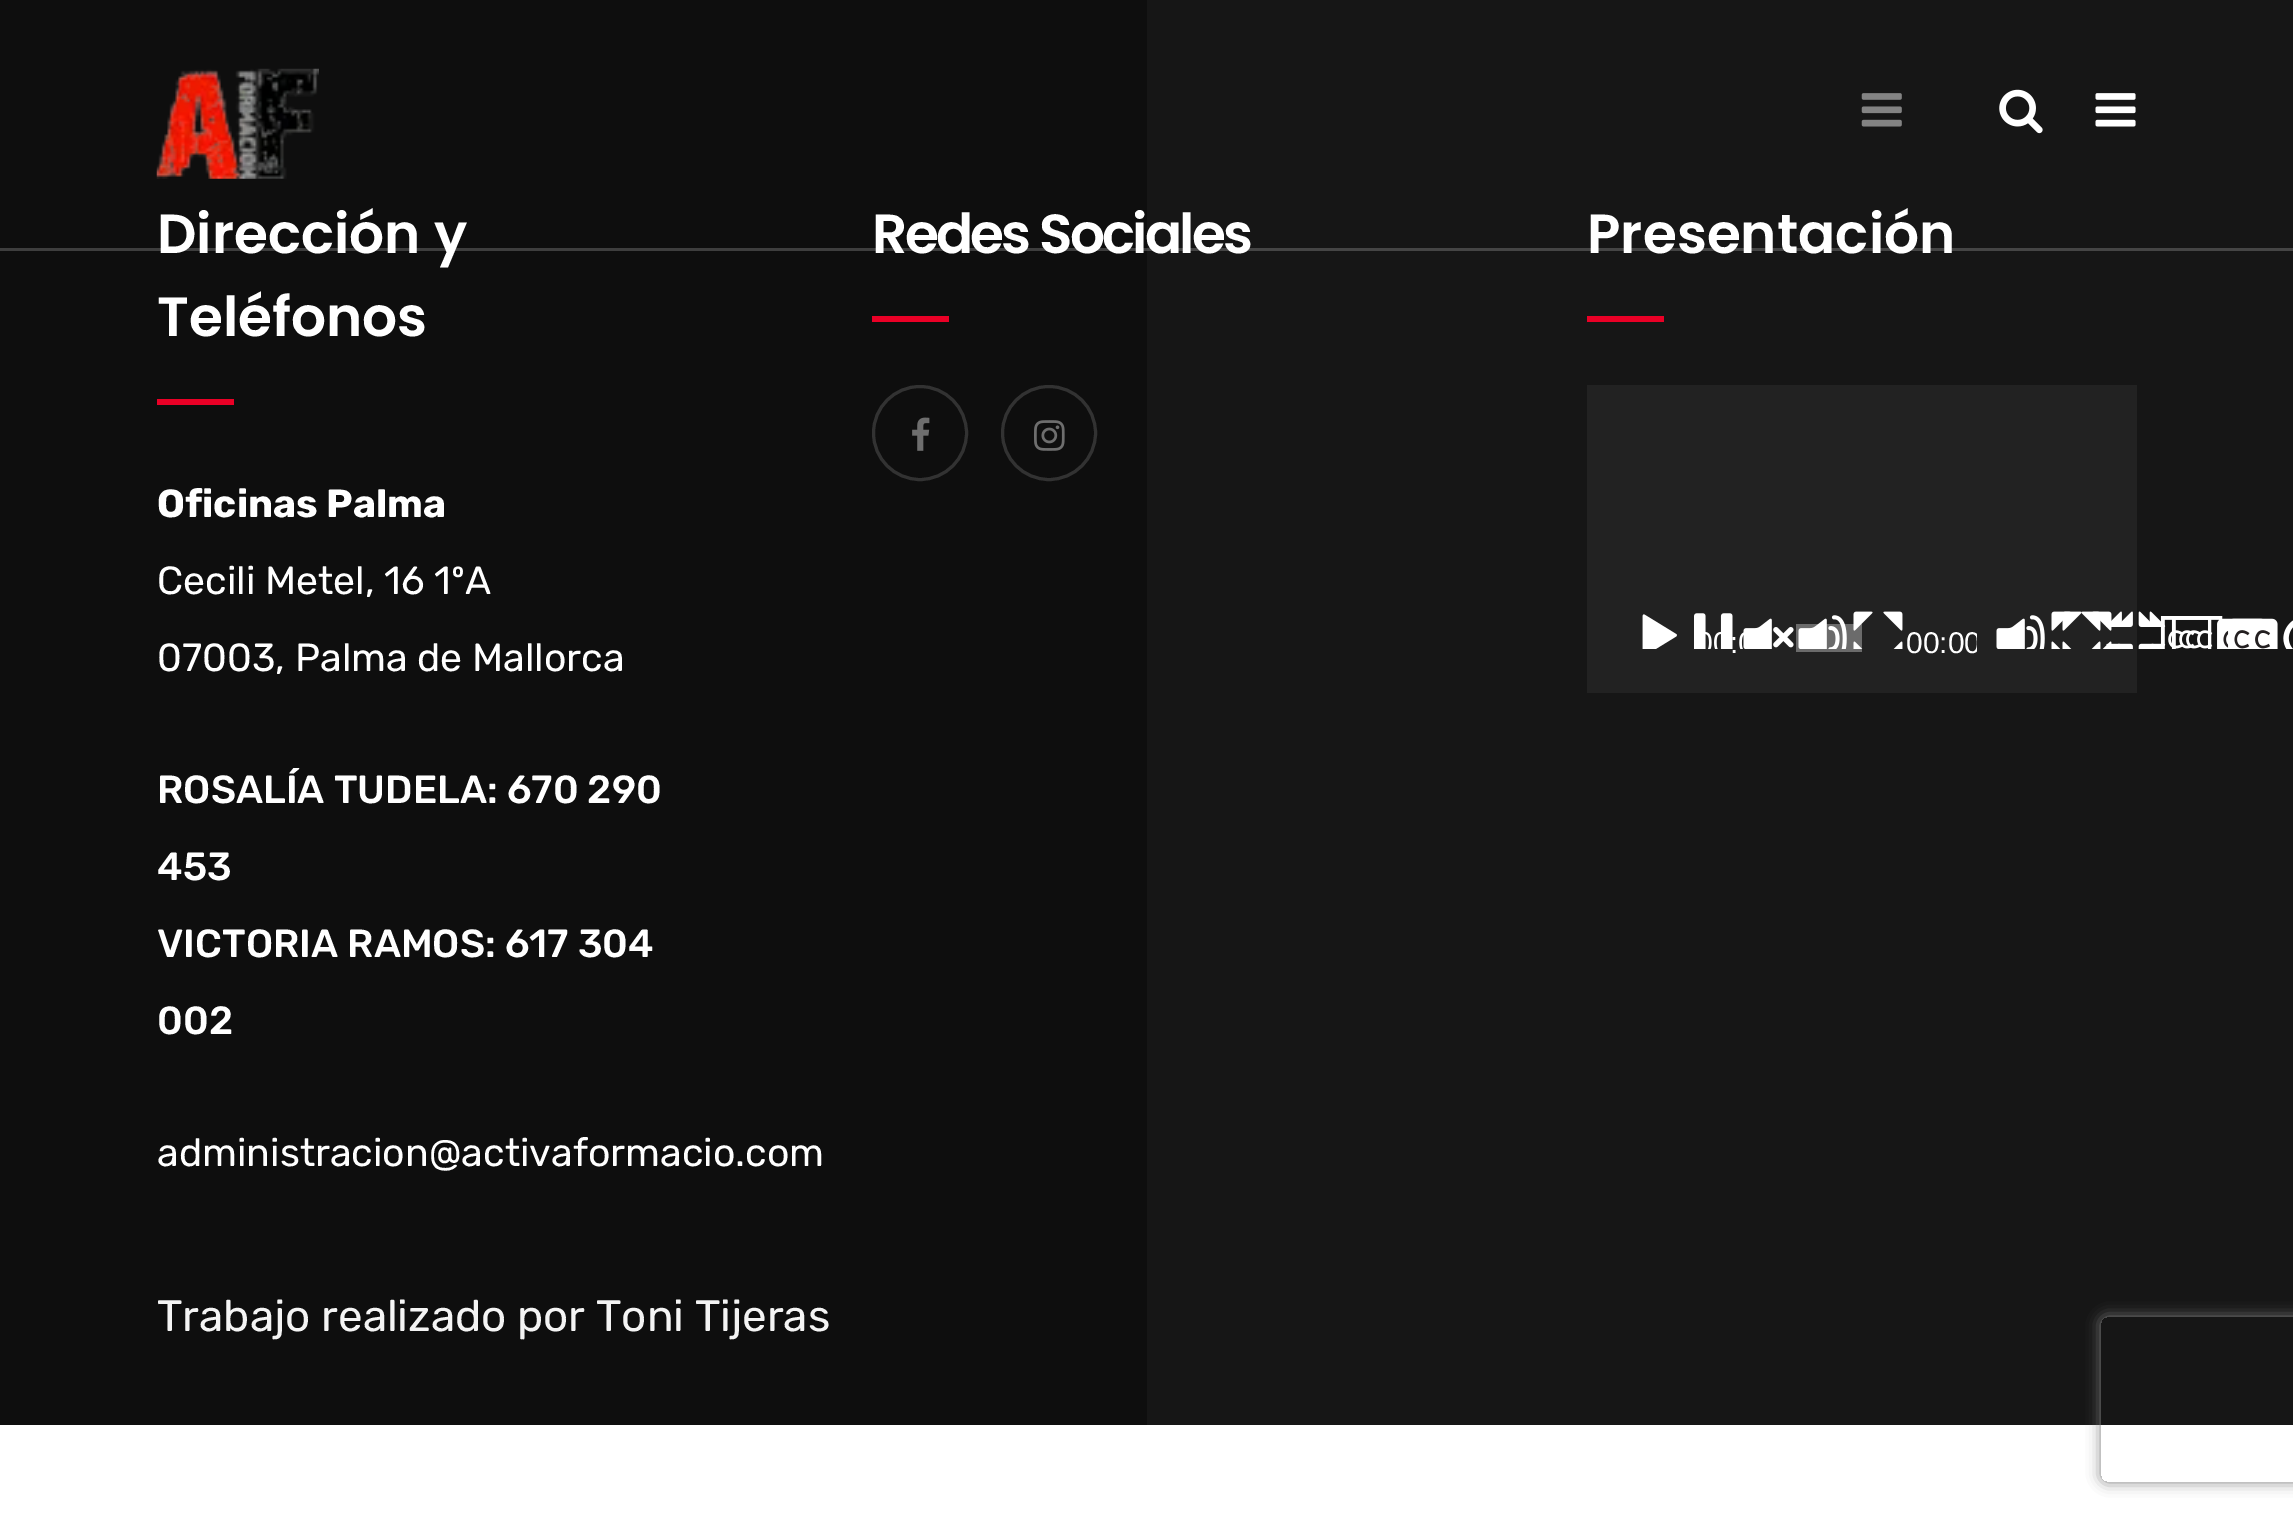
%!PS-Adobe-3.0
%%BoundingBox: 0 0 2293 1520
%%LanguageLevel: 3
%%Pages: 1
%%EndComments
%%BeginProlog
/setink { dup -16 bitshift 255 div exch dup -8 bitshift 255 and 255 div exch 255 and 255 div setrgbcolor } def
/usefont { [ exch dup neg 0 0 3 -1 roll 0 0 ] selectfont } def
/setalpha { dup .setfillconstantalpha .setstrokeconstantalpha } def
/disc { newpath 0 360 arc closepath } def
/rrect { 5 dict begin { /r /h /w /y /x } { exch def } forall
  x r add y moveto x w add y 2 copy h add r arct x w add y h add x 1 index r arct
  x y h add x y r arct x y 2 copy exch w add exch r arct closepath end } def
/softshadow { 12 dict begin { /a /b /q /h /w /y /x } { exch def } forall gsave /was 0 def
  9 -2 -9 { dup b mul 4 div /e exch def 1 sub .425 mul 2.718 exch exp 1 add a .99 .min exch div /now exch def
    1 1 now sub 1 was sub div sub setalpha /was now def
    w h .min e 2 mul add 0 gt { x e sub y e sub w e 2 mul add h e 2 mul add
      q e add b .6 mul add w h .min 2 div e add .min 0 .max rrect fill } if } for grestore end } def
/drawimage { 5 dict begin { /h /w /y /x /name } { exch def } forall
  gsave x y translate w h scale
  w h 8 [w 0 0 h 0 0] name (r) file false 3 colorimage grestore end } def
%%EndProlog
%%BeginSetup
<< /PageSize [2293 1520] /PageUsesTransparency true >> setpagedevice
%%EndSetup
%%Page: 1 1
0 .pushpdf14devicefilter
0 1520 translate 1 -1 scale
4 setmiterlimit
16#FFFFFF setink
0 0 2293 1520 rectfill
16#161616 setink
1147 0 1146 1425 rectfill
16#0E0E0E setink
0 0 1147 1425 rectfill
/Poppins-SemiBold 55 usefont
16#FFFFFF setink
157 253 moveto (Dirección y) show
872 253 moveto -2.75 0 (Redes Sociales) ashow
1587 253 moveto (Presentación) show
0.2 setalpha
0 248 2293 3 rectfill
1 setalpha
(img1.raw) 156 68 163 111 drawimage
(img2.raw) 1861 93 41 34 drawimage
(img3.raw) 1999 89 44 45 drawimage
(img4.raw) 2095 93 41 34 drawimage
157 336 moveto (Teléfonos) show
16#EA0026 setink
157 399 77 6 rectfill
/Rubik-Bold 39.2 usefont
16#FFFFFF setink
157 517 moveto (Oficinas Palma) show
/Rubik-Regular 39.2 usefont
157 594 moveto (Cecili Metel, 16 1ºA) show
157 671 moveto (07003, Palma de Mallorca) show
/Rubik-Medium 39.2 usefont
[
    [(ROSALÍA TUDELA: 670 290) 157 803]
    [(453) 157 880]
    [(VICTORIA RAMOS: 617 304) 157 957]
    [(002) 157 1034]
] { aload pop moveto show } forall
/Rubik-Regular 39.2 usefont
157 1166 moveto (administracion@activaformacio.com) show
16#EA0026 setink
872 316 77 6 rectfill
16#323232 setink
3 setlinewidth
920 433 46.5 disc stroke
(img5.raw) 912 417 18 34 drawimage
1049 433 46.5 disc stroke
(img6.raw) 1034 420 31 31 drawimage
16#EA0026 setink
1587 316 77 6 rectfill
16#222222 setink
1587 385 550 308 rectfill
/LiberationSans-Regular 30 usefont
16#FFFFFF setink
1730 653 moveto (:) show
(img7.raw) 1642 611 261 38 drawimage
(img8.raw) 1996 611 267 38 drawimage
0.33 setalpha
1796 624 66 28 rectfill
gsave
1889 583 88 110 rectclip
1 setalpha
1906 653 moveto (00:00) show
grestore
1 setalpha
(img9.raw) 2062 611 231 38 drawimage
/Rubik-Regular 44 usefont
16#F4F4F4 setink
157 1331 moveto (Trabajo realizado por Toni Tijeras) show
gsave
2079 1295 moveto 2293 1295 lineto 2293 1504 lineto 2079 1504 lineto closepath 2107 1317 moveto 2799 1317 lineto 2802.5 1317 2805 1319.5 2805 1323 curveto 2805 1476 lineto 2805 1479.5 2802.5 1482 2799 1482 curveto 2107 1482 lineto 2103.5 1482 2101 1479.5 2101 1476 curveto 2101 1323 lineto 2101 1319.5 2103.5 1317 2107 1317 curveto closepath eoclip newpath
16#808080 setink
2101 1317 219 165 6 7 1 softshadow
grestore
.poppdf14devicefilter showpage
%%EOF
